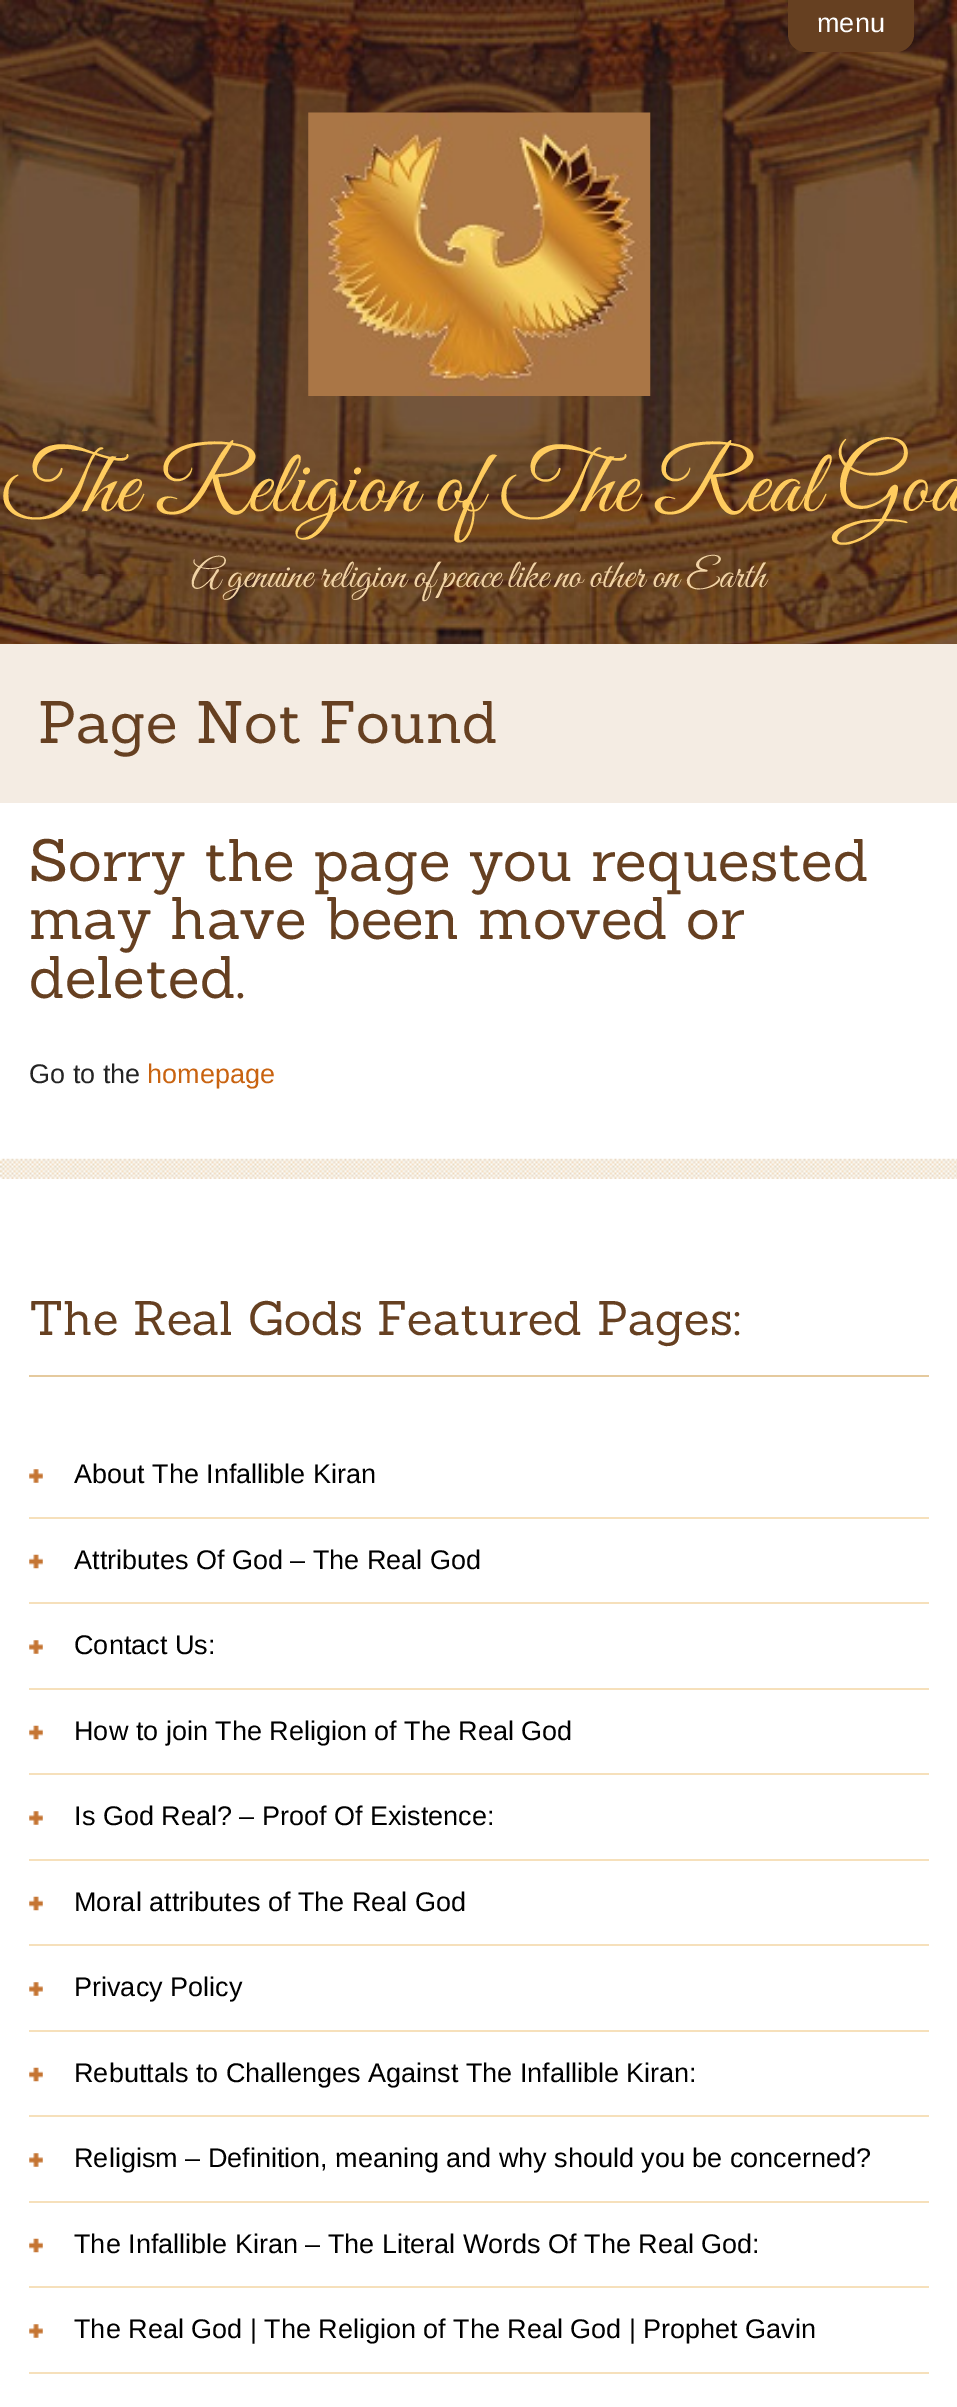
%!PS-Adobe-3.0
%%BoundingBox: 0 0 957 2407
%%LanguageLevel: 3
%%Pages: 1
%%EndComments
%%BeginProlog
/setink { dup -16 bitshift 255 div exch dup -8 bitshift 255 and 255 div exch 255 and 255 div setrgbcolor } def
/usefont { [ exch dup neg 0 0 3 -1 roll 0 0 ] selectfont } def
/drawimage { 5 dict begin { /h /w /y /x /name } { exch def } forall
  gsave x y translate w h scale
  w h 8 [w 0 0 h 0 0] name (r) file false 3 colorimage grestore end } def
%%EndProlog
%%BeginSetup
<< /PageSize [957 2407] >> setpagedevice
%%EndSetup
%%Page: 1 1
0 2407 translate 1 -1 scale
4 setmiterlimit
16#FFFFFF setink
0 0 957 2407 rectfill
(img1.raw) 0 0 957 644 drawimage
16#664021 setink
788 0 moveto 914 0 lineto 914 34 lineto 914 44 906 52 896 52 curveto 806 52 lineto 796 52 788 44 788 34 curveto closepath fill
/LiberationSans-Regular 27 usefont
16#FFFFFF setink
817 32 moveto (menu) show
(img2.raw) 308 112 343 284 drawimage
/GreatVibes-Regular 90 usefont
16#FFCC5F setink
1 511 moveto 1.25 0 32 (The Religion of The Real God) widthshow
/GreatVibes-Regular 40.5 usefont
16#F1D3A6 setink
191 587 moveto -0.25 0 32 (A genuine religion of peace like no other on Earth) widthshow
16#F4ECE3 setink
0 644 957 159 rectfill
/Sanchez-Regular 58.5 usefont
16#664021 setink
[
    [(Page Not Found) 38 743]
    [(Sorry the page you requested) 29 881]
    [(may have been moved or) 29 939]
    [(deleted.) 29 998]
] { aload pop moveto show } forall
/LiberationSans-Regular 27 usefont
16#242424 setink
29 1083 moveto (Go to the) show
16#C96310 setink
147 1083 moveto (homepage) show
(img3.raw) 0 1158 957 21 drawimage
16#E5CA9E setink
29 1375 900 2 rectfill
/Sanchez-Regular 47.25 usefont
16#664021 setink
29 1335 moveto (The Real Gods Featured Pages:) show
16#F6E0BB setink
29 1517 900 2 rectfill
(img4.raw) 29 1469 14 14 drawimage
/LiberationSans-Regular 27 usefont
16#000000 setink
74 1483 moveto (About The Infallible Kiran) show
16#F6E0BB setink
29 1602 900 2 rectfill
(img5.raw) 29 1554 14 15 drawimage
16#000000 setink
74 1569 moveto (Attributes Of God – The Real God) show
16#F6E0BB setink
29 1688 900 2 rectfill
(img4.raw) 29 1640 14 14 drawimage
16#000000 setink
74 1654 moveto (Contact Us:) show
16#F6E0BB setink
29 1773 900 2 rectfill
(img5.raw) 29 1725 14 15 drawimage
16#000000 setink
74 1740 moveto (How to join The Religion of The Real God) show
16#F6E0BB setink
29 1859 900 2 rectfill
(img4.raw) 29 1811 14 14 drawimage
16#000000 setink
74 1825 moveto (Is God Real? – Proof Of Existence:) show
16#F6E0BB setink
29 1944 900 2 rectfill
(img5.raw) 29 1896 14 15 drawimage
16#000000 setink
74 1911 moveto (Moral attributes of The Real God) show
16#F6E0BB setink
29 2030 900 2 rectfill
(img4.raw) 29 1982 14 14 drawimage
16#000000 setink
74 1996 moveto (Privacy Policy) show
16#F6E0BB setink
29 2115 900 2 rectfill
(img5.raw) 29 2067 14 15 drawimage
16#000000 setink
74 2082 moveto (Rebuttals to Challenges Against The Infallible Kiran:) show
16#F6E0BB setink
29 2201 900 2 rectfill
(img4.raw) 29 2153 14 14 drawimage
16#000000 setink
74 2167 moveto (Religism – Definition, meaning and why should you be concerned?) show
16#F6E0BB setink
29 2286 900 2 rectfill
(img5.raw) 29 2238 14 15 drawimage
16#000000 setink
74 2253 moveto (The Infallible Kiran – The Literal Words Of The Real God:) show
16#F6E0BB setink
29 2372 900 2 rectfill
(img4.raw) 29 2324 14 14 drawimage
16#000000 setink
74 2338 moveto (The Real God | The Religion of The Real God | Prophet Gavin) show
showpage
%%EOF
